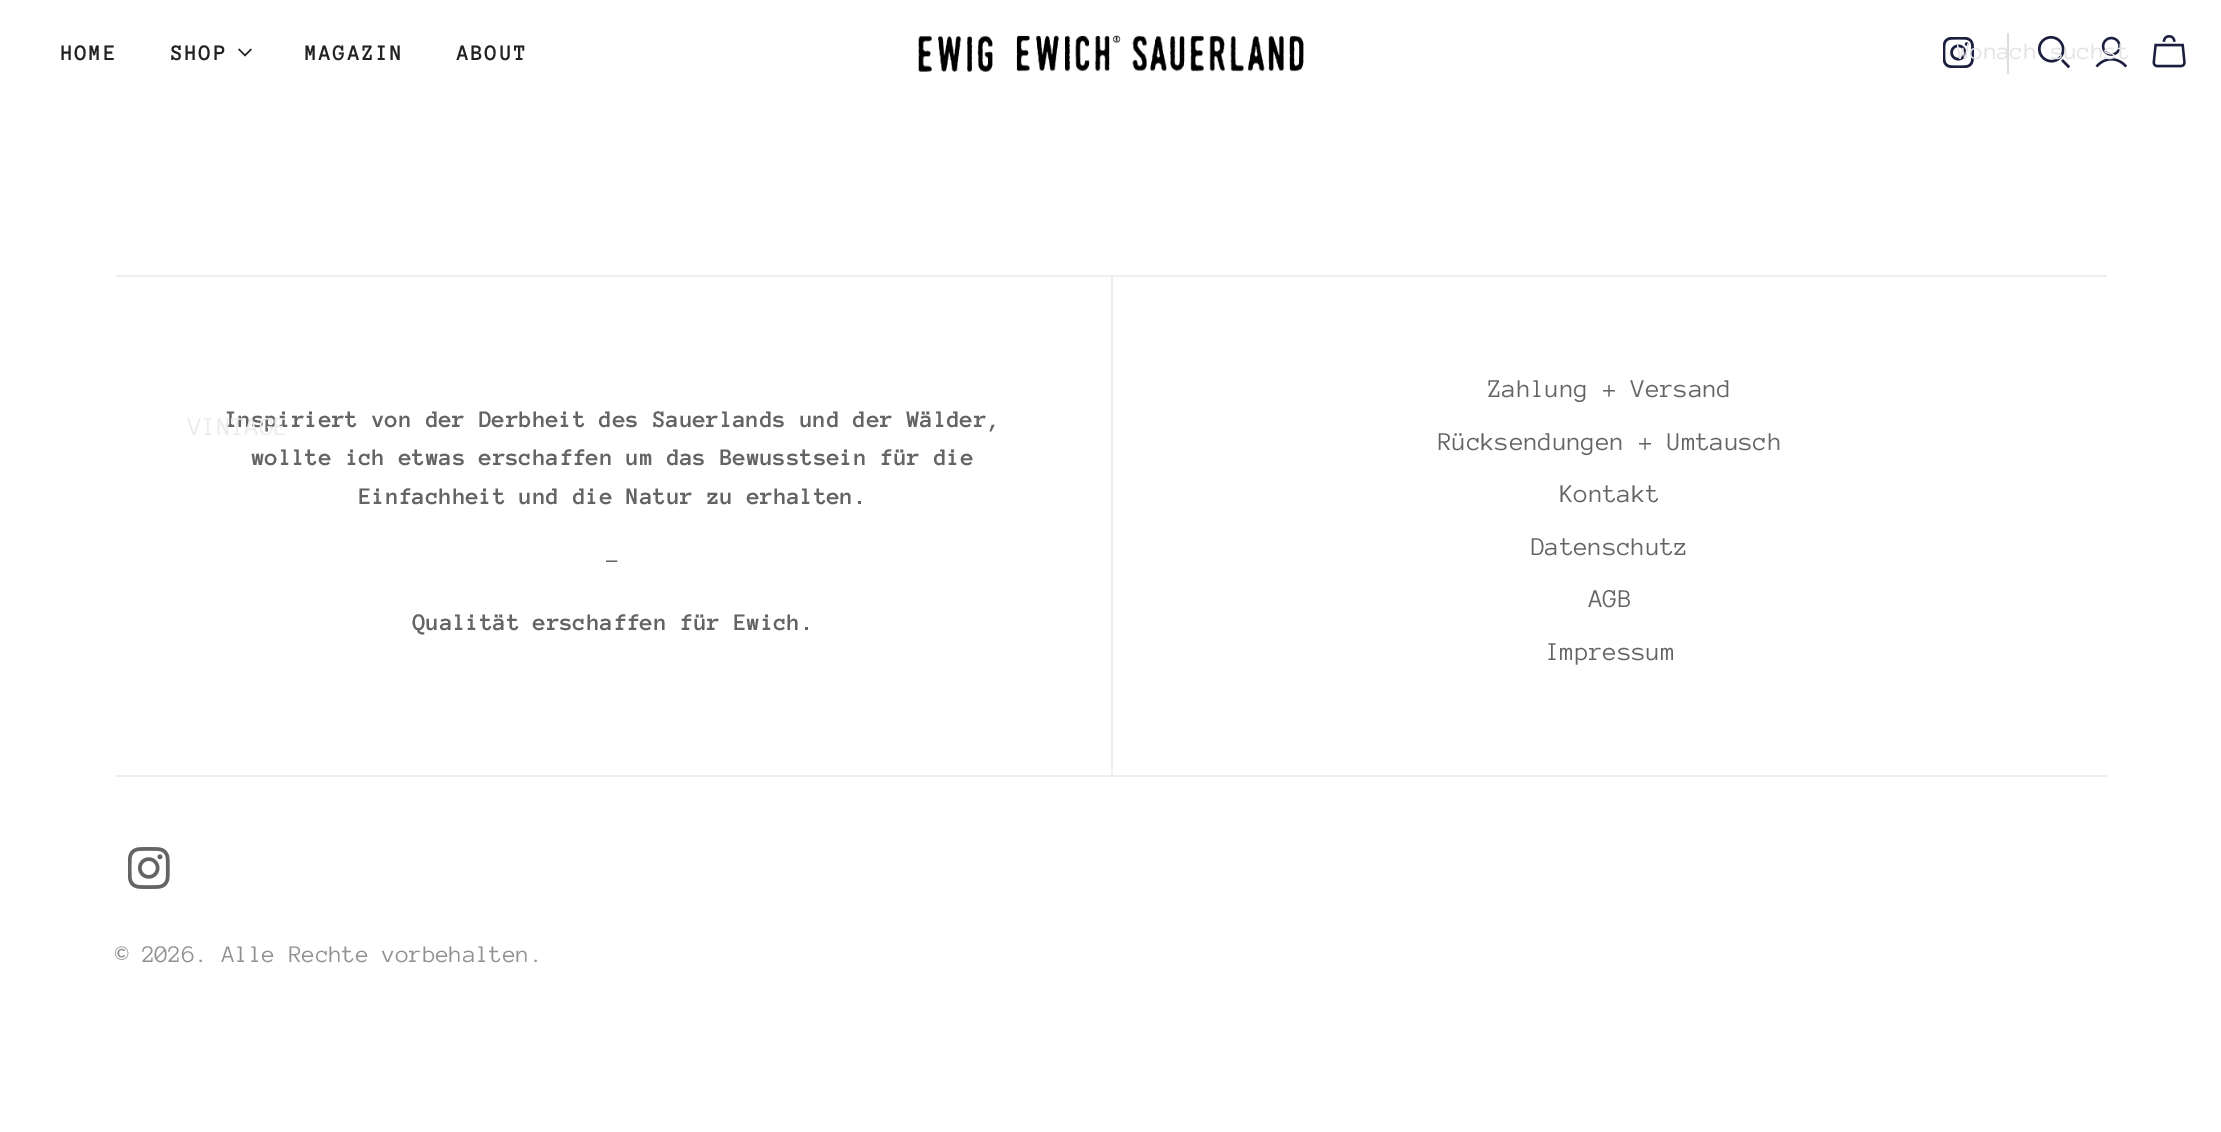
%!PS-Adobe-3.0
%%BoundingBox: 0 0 2221 1132
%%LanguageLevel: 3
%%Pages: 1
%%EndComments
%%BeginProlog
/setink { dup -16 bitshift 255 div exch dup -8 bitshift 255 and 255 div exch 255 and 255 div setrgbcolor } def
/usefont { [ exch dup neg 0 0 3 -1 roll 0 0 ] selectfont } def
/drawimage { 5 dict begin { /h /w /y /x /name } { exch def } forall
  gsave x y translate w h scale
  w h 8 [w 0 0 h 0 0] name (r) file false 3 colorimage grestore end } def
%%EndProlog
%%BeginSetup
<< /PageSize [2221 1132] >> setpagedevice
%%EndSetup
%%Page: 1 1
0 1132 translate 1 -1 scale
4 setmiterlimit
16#FFFFFF setink
0 0 2221 1132 rectfill
/AnonymousPro-Bold 22.75 usefont
16#222222 setink
61 60 moveto 1.75 0 (HOME) ashow
171 60 moveto 1.75 0 (SHOP) ashow
(img1.raw) 238 48 14 9 drawimage
/AnonymousPro-Bold 24.5 usefont
16#646464 setink
225 427 moveto (Inspiriert von der Derbheit des Sauerlands und der Wälder,) show
/AnonymousPro-Regular 26.25 usefont
16#EBEBEB setink
188 435 moveto (VINTAGE) show
/AnonymousPro-Bold 22.75 usefont
16#222222 setink
305 60 moveto 1.75 0 (MAGAZIN) ashow
457 60 moveto 1.75 0 (ABOUT) ashow
(img2.raw) 918 35 386 37 drawimage
(img3.raw) 1943 37 31 31 drawimage
16#DDDDDD setink
2007 33 2 41 rectfill
(img4.raw) 2095 36 33 32 drawimage
(img5.raw) 2152 35 34 33 drawimage
(img6.raw) 2037 35 34 34 drawimage
gsave
1957 40 189 25 rectclip
/AnonymousPro-Regular 24.5 usefont
16#E3E3E7 setink
1957 59 moveto (Wonach suchst) show
grestore
16#EEEEEE setink
116 275 1991 2 rectfill
116 775 1991 2 rectfill
/AnonymousPro-Bold 24.5 usefont
16#646464 setink
252 465 moveto (wollte ich etwas erschaffen um das Bewusstsein für die) show
359 504 moveto (Einfachheit und die Natur zu erhalten.) show
/AnonymousPro-Regular 24.5 usefont
606 567 moveto (-) show
/AnonymousPro-Bold 24.5 usefont
413 630 moveto (Qualität erschaffen für Ewich.) show
16#EEEEEE setink
1111 277 2 498 rectfill
/AnonymousPro-Regular 26.25 usefont
16#646464 setink
[
    [(Zahlung + Versand) 1488 397]
    [(Rücksendungen + Umtausch) 1438 450]
    [(Kontakt) 1560 502]
    [(Datenschutz) 1531 555]
    [(AGB) 1589 607]
    [(Impressum) 1546 660]
] { aload pop moveto show } forall
(img7.raw) 128 847 42 42 drawimage
/AnonymousPro-Regular 24.5 usefont
16#919191 setink
115 962 moveto (© 2026. Alle Rechte vorbehalten.) show
showpage
%%EOF
